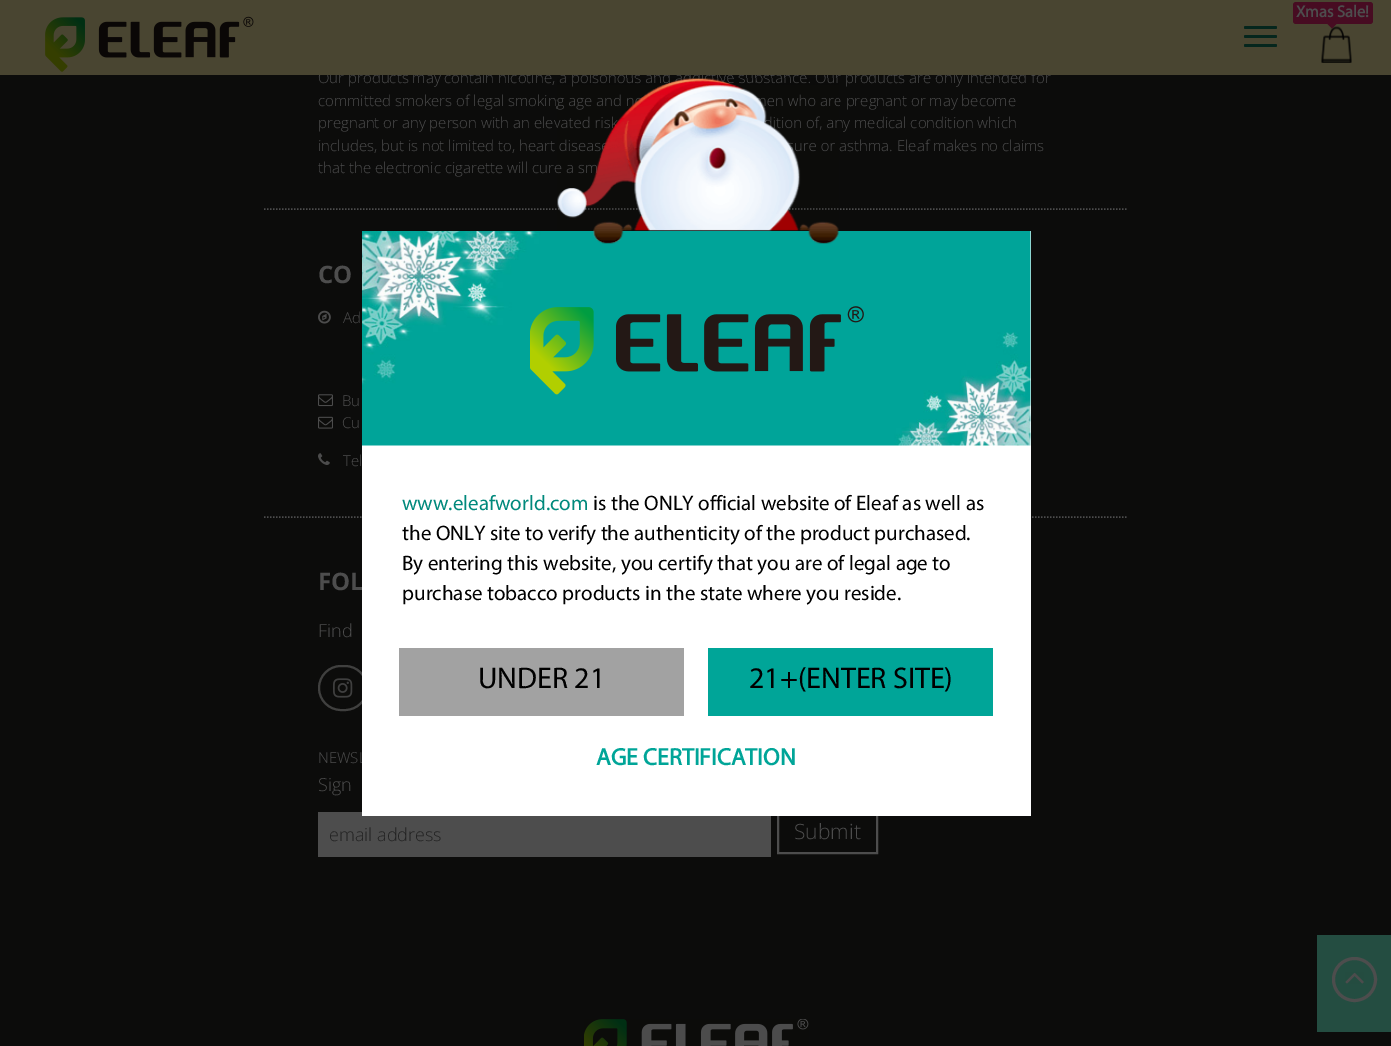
%!PS-Adobe-3.0
%%BoundingBox: 0 0 1391 1046
%%LanguageLevel: 3
%%Pages: 1
%%EndComments
%%BeginProlog
/setink { dup -16 bitshift 255 div exch dup -8 bitshift 255 and 255 div exch 255 and 255 div setrgbcolor } def
/usefont { [ exch dup neg 0 0 3 -1 roll 0 0 ] selectfont } def
/disc { newpath 0 360 arc closepath } def
/rrect { 5 dict begin { /r /h /w /y /x } { exch def } forall
  x r add y moveto x w add y 2 copy h add r arct x w add y h add x 1 index r arct
  x y h add x y r arct x y 2 copy exch w add exch r arct closepath end } def
/drawimage { 5 dict begin { /h /w /y /x /name } { exch def } forall
  gsave x y translate w h scale
  w h 8 [w 0 0 h 0 0] name (r) file false 3 colorimage grestore end } def
%%EndProlog
%%BeginSetup
<< /PageSize [1391 1046] >> setpagedevice
%%EndSetup
%%Page: 1 1
0 1046 translate 1 -1 scale
4 setmiterlimit
16#0C0C0B setink
0 0 1391 1046 rectfill
/OpenSans-Light 15 usefont
16#4D4D4D setink
318 83 moveto (Our products may contain nicotine, a poisonous and addictive substance. Our products are only intended for) show
16#494531 setink
0 0 1391 75 rectfill
16#470C22 setink
1293 2 80 22 3 rrect fill
/Myriad-Bold 16.5 usefont
16#4D4D4D setink
1296 17 moveto (Xmas Sale!) show
(img1.raw) 1321 26 31 37 drawimage
16#470C22 setink
1327.5 24 moveto 1336.5 24 lineto 1332 28.5 lineto closepath fill
(img2.raw) 45 16 209 56 drawimage
16#05261D setink
1244 26 33 3 1.5 rrect fill
1244 35 33 3 1.5 rrect fill
1244 44 33 3 1.5 rrect fill
16#4D4D4D setink
1.5 setlinewidth
[1.5 1.5] 0 setdash
264 209 moveto 1128 209 lineto stroke
/OpenSans-Light 15 usefont
[
    [(committed smokers of legal smoking age and n) 318 106]
    [(men who are pregnant or may become) 753 106]
    [(pregnant or any person with an elevated risk) 318 128]
    [(dition of, any medical condition which) 764 128]
    [(includes, but is not limited to, heart diseas) 318 151]
    [(sure or asthma. Eleaf makes no claims) 787 151]
    [(that the electronic cigarette will cure a sm) 318 173]
] { aload pop moveto show } forall
264 517 moveto 1128 517 lineto stroke
/OpenSans-Bold 24 usefont
318 283 moveto (CO) show
(img3.raw) 318 310 13 14 drawimage
/OpenSans-Light 15 usefont
343 323 moveto (Ad) show
(img4.raw) 318 394 15 13 drawimage
342 406 moveto (Bu) show
(img5.raw) 318 416 15 13 drawimage
342 428 moveto (Cu) show
(img6.raw) 318 453 12 12 drawimage
343 466 moveto (Tel) show
/OpenSans-Bold 24 usefont
318 590 moveto (FOL) show
/OpenSans-Light 18 usefont
318 637 moveto (Find) show
16#40403F setink
2 setlinewidth
[] 0 setdash
319 666 48 44 22 rrect stroke
(img7.raw) 333 678 20 20 drawimage
/OpenSans-Light 15 usefont
16#4D4D4D setink
318 763 moveto (NEWSL) show
/OpenSans-Light 18 usefont
318 791 moveto (Sign) show
318 812 453 45 rectfill
16#232323 setink
329 841 moveto (email address) show
16#4D4D4D setink
778 810 99 43 rectstroke
/OpenSans-Light 21 usefont
794 839 moveto (Submit) show
(img8.raw) 584 1019 225 27 drawimage
16#FFFFFF setink
362 231 669 585 rectfill
(img10.raw) 362 231 669 215 drawimage
(img9.raw) 557 78 282 166 drawimage
(img11.raw) 530 306 334 89 drawimage
/Myriad-Regular 21 usefont
16#00897C setink
402 510 moveto (www.eleafworld.com) show
16#000000 setink
[
    [(is the ONLY official website of Eleaf as well as) 593 510]
    [(the ONLY site to verify the authenticity of the product purchased.) 402 540]
    [(By entering this website, you certify that you are of legal age to) 402 570]
    [(purchase tobacco products in the state where you reside.) 402 600]
] { aload pop moveto show } forall
16#A2A2A2 setink
399 648 285 68 rectfill
/Myriad-Regular 30 usefont
16#000000 setink
478 688 moveto (UNDER 21) show
16#00A598 setink
708 648 285 68 rectfill
16#000000 setink
749 688 moveto (21+\(ENTER SITE\)) show
/Myriad-Bold 24 usefont
16#00A598 setink
596 765 moveto (AGE CERTIFICATION) show
16#244D41 setink
1317 935 74 97 rectfill
16#4D4D4D setink
3 setlinewidth
1354.5 979.5 21 disc stroke
(img12.raw) 1345 972 19 12 drawimage
showpage
%%EOF
